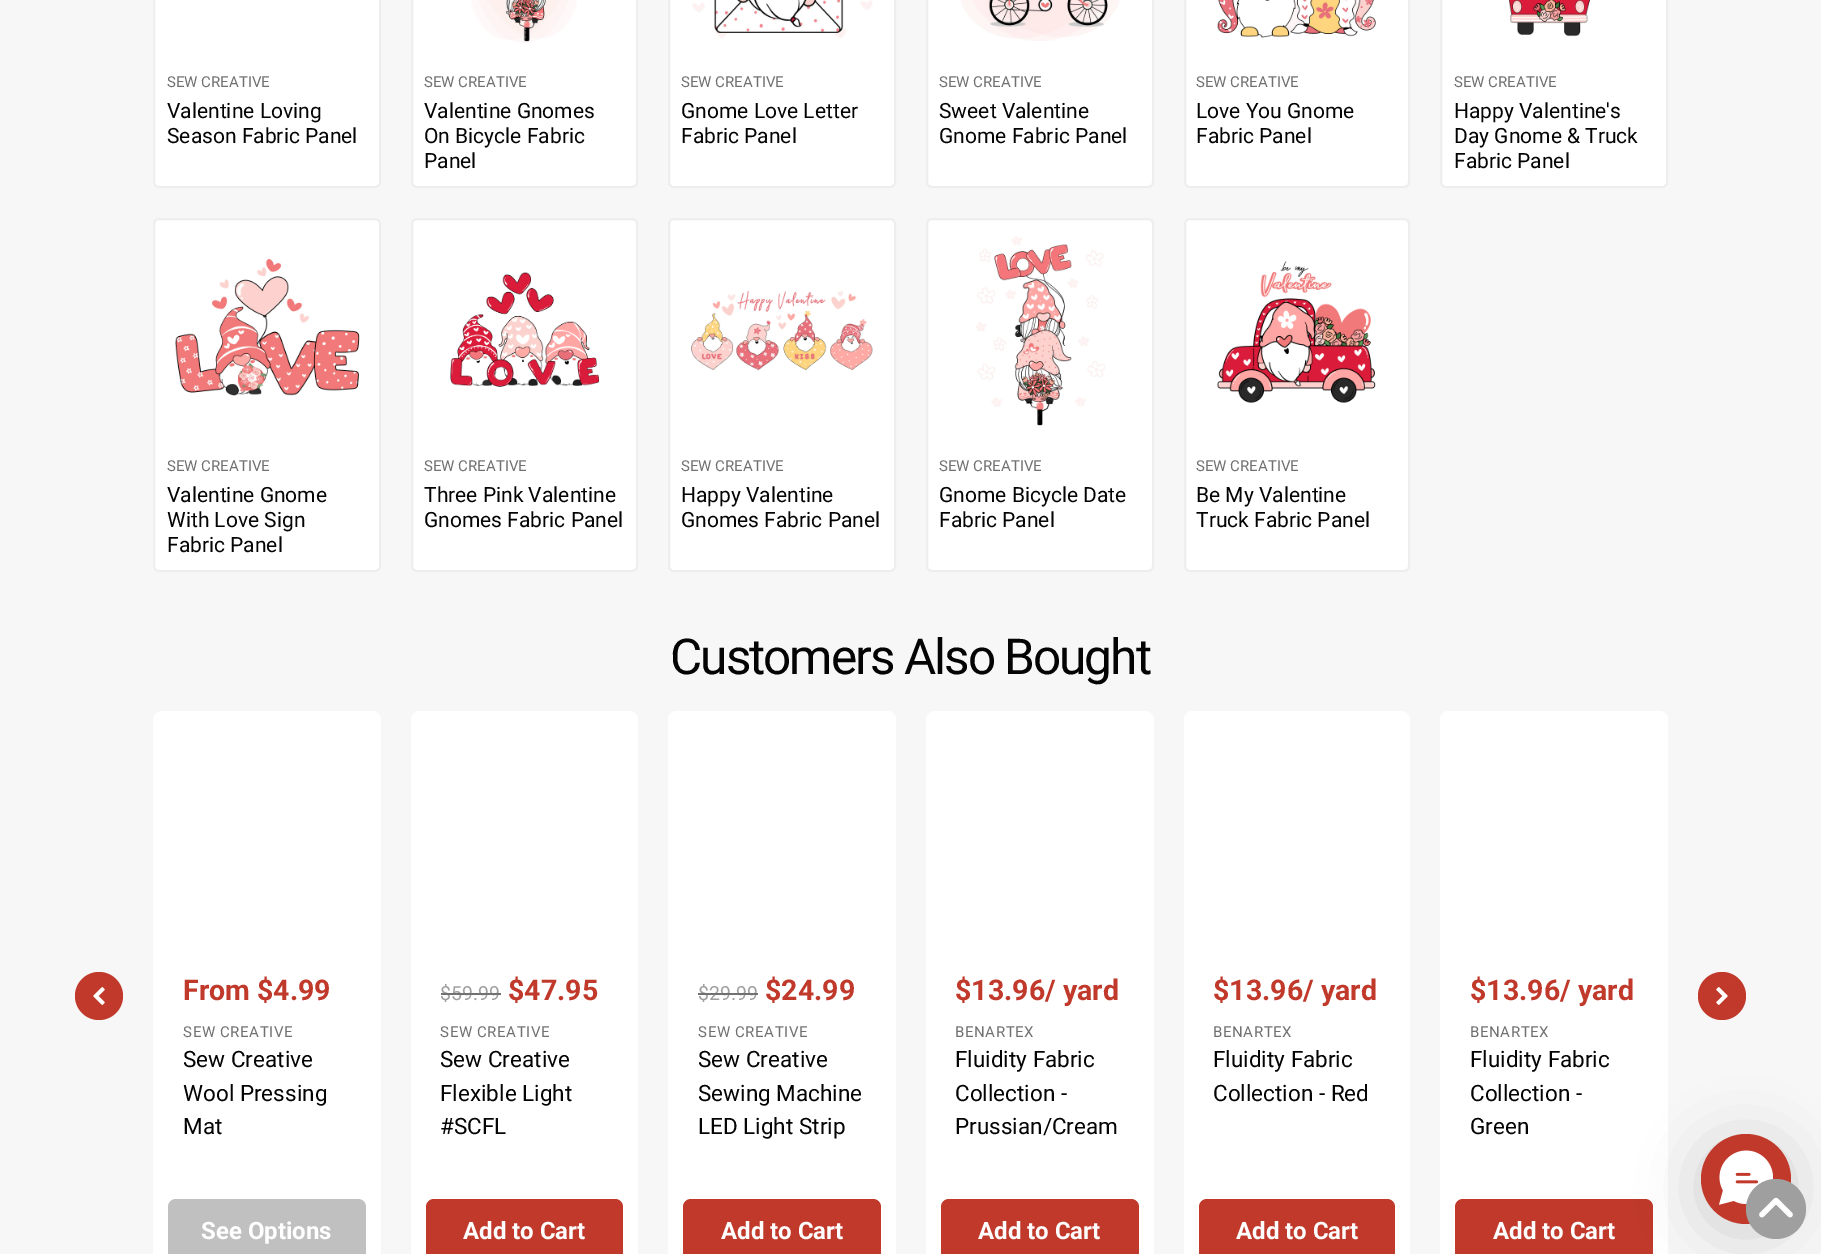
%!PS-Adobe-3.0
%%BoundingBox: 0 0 1821 1254
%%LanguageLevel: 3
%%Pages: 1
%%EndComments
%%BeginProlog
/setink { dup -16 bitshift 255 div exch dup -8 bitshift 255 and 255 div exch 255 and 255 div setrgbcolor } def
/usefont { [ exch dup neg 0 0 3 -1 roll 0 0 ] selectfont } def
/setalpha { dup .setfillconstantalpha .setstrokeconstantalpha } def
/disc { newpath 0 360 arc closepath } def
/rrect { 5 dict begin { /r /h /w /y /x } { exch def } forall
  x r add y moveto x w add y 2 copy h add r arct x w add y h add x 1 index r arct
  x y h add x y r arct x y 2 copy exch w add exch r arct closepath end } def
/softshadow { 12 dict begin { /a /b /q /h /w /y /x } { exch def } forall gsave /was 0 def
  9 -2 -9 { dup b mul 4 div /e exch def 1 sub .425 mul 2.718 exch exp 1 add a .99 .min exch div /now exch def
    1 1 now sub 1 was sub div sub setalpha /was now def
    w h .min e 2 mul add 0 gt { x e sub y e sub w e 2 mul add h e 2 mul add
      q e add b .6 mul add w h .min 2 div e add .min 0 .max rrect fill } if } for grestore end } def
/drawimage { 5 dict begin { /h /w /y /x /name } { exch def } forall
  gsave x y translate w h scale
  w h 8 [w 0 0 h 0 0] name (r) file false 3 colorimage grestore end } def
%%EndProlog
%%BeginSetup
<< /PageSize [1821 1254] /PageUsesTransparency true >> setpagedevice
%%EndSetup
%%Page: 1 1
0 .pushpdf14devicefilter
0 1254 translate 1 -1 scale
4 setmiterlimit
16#F7F7F7 setink
0 0 1821 1254 rectfill
16#FFFFFF setink
154 -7 226 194 5 rrect gsave fill grestore
16#EEEEEE setink
2 setlinewidth
stroke
/Roboto-Regular 15 usefont
16#717171 setink
167 87 moveto (SEW CREATIVE) show
/Roboto-Regular 21 usefont
16#040404 setink
167 118 moveto (Valentine Loving) show
167 143 moveto (Season Fabric Panel) show
16#FFFFFF setink
412 -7 225 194 5 rrect gsave fill grestore
16#EEEEEE setink
stroke
(img1.raw) 471 0 106 43 drawimage
/Roboto-Regular 15 usefont
16#717171 setink
424 87 moveto (SEW CREATIVE) show
/Roboto-Regular 21 usefont
16#040404 setink
[
    [(Valentine Gnomes) 424 118]
    [(On Bicycle Fabric) 424 143]
    [(Panel) 424 168]
] { aload pop moveto show } forall
16#FFFFFF setink
669 -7 226 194 5 rrect gsave fill grestore
16#EEEEEE setink
stroke
(img2.raw) 692 0 181 39 drawimage
/Roboto-Regular 15 usefont
16#717171 setink
681 87 moveto (SEW CREATIVE) show
/Roboto-Regular 21 usefont
16#040404 setink
681 118 moveto (Gnome Love Letter) show
681 143 moveto (Fabric Panel) show
16#FFFFFF setink
927 -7 226 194 5 rrect gsave fill grestore
16#EEEEEE setink
stroke
(img3.raw) 960 0 160 41 drawimage
/Roboto-Regular 15 usefont
16#717171 setink
939 87 moveto (SEW CREATIVE) show
/Roboto-Regular 21 usefont
16#040404 setink
939 118 moveto (Sweet Valentine) show
939 143 moveto (Gnome Fabric Panel) show
16#FFFFFF setink
1185 -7 224 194 5 rrect gsave fill grestore
16#EEEEEE setink
stroke
(img4.raw) 1217 0 159 38 drawimage
/Roboto-Regular 15 usefont
16#717171 setink
1196 87 moveto (SEW CREATIVE) show
/Roboto-Regular 21 usefont
16#040404 setink
1196 118 moveto (Love You Gnome) show
1196 143 moveto (Fabric Panel) show
16#FFFFFF setink
1441 -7 226 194 5 rrect gsave fill grestore
16#EEEEEE setink
stroke
(img5.raw) 1509 0 81 37 drawimage
/Roboto-Regular 15 usefont
16#717171 setink
1454 87 moveto (SEW CREATIVE) show
/Roboto-Regular 21 usefont
16#040404 setink
[
    [(Happy Valentine's) 1454 118]
    [(Day Gnome & Truck) 1454 143]
    [(Fabric Panel) 1454 168]
] { aload pop moveto show } forall
16#FFFFFF setink
154 219 226 352 5 rrect gsave fill grestore
16#EEEEEE setink
stroke
(img6.raw) 175 259 185 137 drawimage
/Roboto-Regular 15 usefont
16#717171 setink
167 471 moveto (SEW CREATIVE) show
/Roboto-Regular 21 usefont
16#040404 setink
[
    [(Valentine Gnome) 167 502]
    [(With Love Sign) 167 527]
    [(Fabric Panel) 167 552]
] { aload pop moveto show } forall
16#FFFFFF setink
412 219 225 352 5 rrect gsave fill grestore
16#EEEEEE setink
stroke
(img7.raw) 450 272 149 115 drawimage
/Roboto-Regular 15 usefont
16#717171 setink
424 471 moveto (SEW CREATIVE) show
/Roboto-Regular 21 usefont
16#040404 setink
424 502 moveto (Three Pink Valentine) show
424 527 moveto (Gnomes Fabric Panel) show
16#FFFFFF setink
669 219 226 352 5 rrect gsave fill grestore
16#EEEEEE setink
stroke
(img8.raw) 691 290 182 81 drawimage
/Roboto-Regular 15 usefont
16#717171 setink
681 471 moveto (SEW CREATIVE) show
/Roboto-Regular 21 usefont
16#040404 setink
681 502 moveto (Happy Valentine) show
681 527 moveto (Gnomes Fabric Panel) show
16#FFFFFF setink
927 219 226 352 5 rrect gsave fill grestore
16#EEEEEE setink
stroke
(img9.raw) 975 236 131 190 drawimage
/Roboto-Regular 15 usefont
16#717171 setink
939 471 moveto (SEW CREATIVE) show
/Roboto-Regular 21 usefont
16#040404 setink
939 502 moveto (Gnome Bicycle Date) show
939 527 moveto (Fabric Panel) show
16#FFFFFF setink
1185 219 224 352 5 rrect gsave fill grestore
16#EEEEEE setink
stroke
(img10.raw) 1217 261 159 142 drawimage
/Roboto-Regular 15 usefont
16#717171 setink
1196 471 moveto (SEW CREATIVE) show
/Roboto-Regular 21 usefont
16#040404 setink
1196 502 moveto (Be My Valentine) show
1196 527 moveto (Truck Fabric Panel) show
/Roboto-Regular 49.5 usefont
670 674 moveto -2 0 (Customers Also Bought) ashow
16#C0392B setink
99 996 24 disc fill
(img11.raw) 93 987 12 18 drawimage
16#FFFFFF setink
153 711 228 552 9 rrect fill
/Roboto-Bold 28.5 usefont
16#C0392B setink
183 1000 moveto (From $4.99) show
/Roboto-Regular 15 usefont
16#717171 setink
183 1037 moveto 0.6 0 (SEW CREATIVE) ashow
/Roboto-Regular 22.5 usefont
16#040404 setink
[
    [(Sew Creative) 183 1067]
    [(Wool Pressing) 183 1101]
    [(Mat) 183 1134]
] { aload pop moveto show } forall
16#C0C0C0 setink
168 1199 198 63 8 rrect fill
/Roboto-Bold 24 usefont
16#FFFFFF setink
201 1239 moveto (See Options) show
411 711 227 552 9 rrect fill
/Roboto-Regular 19.5 usefont
16#9F9F9F setink
440 1000 moveto ($59.99) show
16#717171 setink
441 993 60 2 rectfill
/Roboto-Bold 28.5 usefont
16#C0392B setink
508 1000 moveto ($47.95) show
/Roboto-Regular 15 usefont
16#717171 setink
440 1037 moveto 0.6 0 (SEW CREATIVE) ashow
/Roboto-Regular 22.5 usefont
16#040404 setink
[
    [(Sew Creative) 440 1067]
    [(Flexible Light) 440 1101]
    [(#SCFL) 440 1134]
] { aload pop moveto show } forall
16#C0392B setink
426 1199 197 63 8 rrect fill
/Roboto-Bold 24 usefont
16#FFFFFF setink
463 1239 moveto (Add to Cart) show
668 711 228 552 9 rrect fill
/Roboto-Regular 19.5 usefont
16#9F9F9F setink
698 1000 moveto ($29.99) show
16#717171 setink
698 993 60 2 rectfill
/Roboto-Bold 28.5 usefont
16#C0392B setink
765 1000 moveto ($24.99) show
/Roboto-Regular 15 usefont
16#717171 setink
698 1037 moveto 0.6 0 (SEW CREATIVE) ashow
/Roboto-Regular 22.5 usefont
16#040404 setink
[
    [(Sew Creative) 698 1067]
    [(Sewing Machine) 698 1101]
    [(LED Light Strip) 698 1134]
] { aload pop moveto show } forall
16#C0392B setink
683 1199 198 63 8 rrect fill
/Roboto-Bold 24 usefont
16#FFFFFF setink
721 1239 moveto (Add to Cart) show
926 711 228 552 9 rrect fill
/Roboto-Bold 28.5 usefont
16#C0392B setink
955 1000 moveto ($13.96/ yard) show
/Roboto-Regular 15 usefont
16#717171 setink
955 1037 moveto 0.6 0 (BENARTEX) ashow
/Roboto-Regular 22.5 usefont
16#040404 setink
[
    [(Fluidity Fabric) 955 1067]
    [(Collection -) 955 1101]
    [(Prussian/Cream) 955 1134]
] { aload pop moveto show } forall
16#C0392B setink
941 1199 198 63 8 rrect fill
/Roboto-Bold 24 usefont
16#FFFFFF setink
978 1239 moveto (Add to Cart) show
1184 711 226 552 9 rrect fill
/Roboto-Bold 28.5 usefont
16#C0392B setink
1213 1000 moveto ($13.96/ yard) show
/Roboto-Regular 15 usefont
16#717171 setink
1213 1037 moveto 0.6 0 (BENARTEX) ashow
/Roboto-Regular 22.5 usefont
16#040404 setink
1213 1067 moveto (Fluidity Fabric) show
1213 1101 moveto (Collection - Red) show
16#C0392B setink
1199 1199 196 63 8 rrect fill
/Roboto-Bold 24 usefont
16#FFFFFF setink
1236 1239 moveto (Add to Cart) show
1440 711 228 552 9 rrect fill
/Roboto-Bold 28.5 usefont
16#C0392B setink
1470 1000 moveto ($13.96/ yard) show
/Roboto-Regular 15 usefont
16#717171 setink
1470 1037 moveto 0.6 0 (BENARTEX) ashow
/Roboto-Regular 22.5 usefont
16#040404 setink
[
    [(Fluidity Fabric) 1470 1067]
    [(Collection -) 1470 1101]
    [(Green) 1470 1134]
] { aload pop moveto show } forall
16#C0392B setink
1455 1199 198 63 8 rrect fill
/Roboto-Bold 24 usefont
16#FFFFFF setink
1493 1239 moveto (Add to Cart) show
16#C0392B setink
1722 996 24 disc fill
(img12.raw) 1716 987 12 18 drawimage
16#000000 setink
1701 1142 90 90 45 30 0.16 softshadow
16#C0392B setink
1746 1179 45 disc fill
(img13.raw) 1719 1150 54 55 drawimage
16#9F9F9F setink
1776 1209 30 disc fill
(img14.raw) 1759 1197 34 21 drawimage
.poppdf14devicefilter showpage
%%EOF
